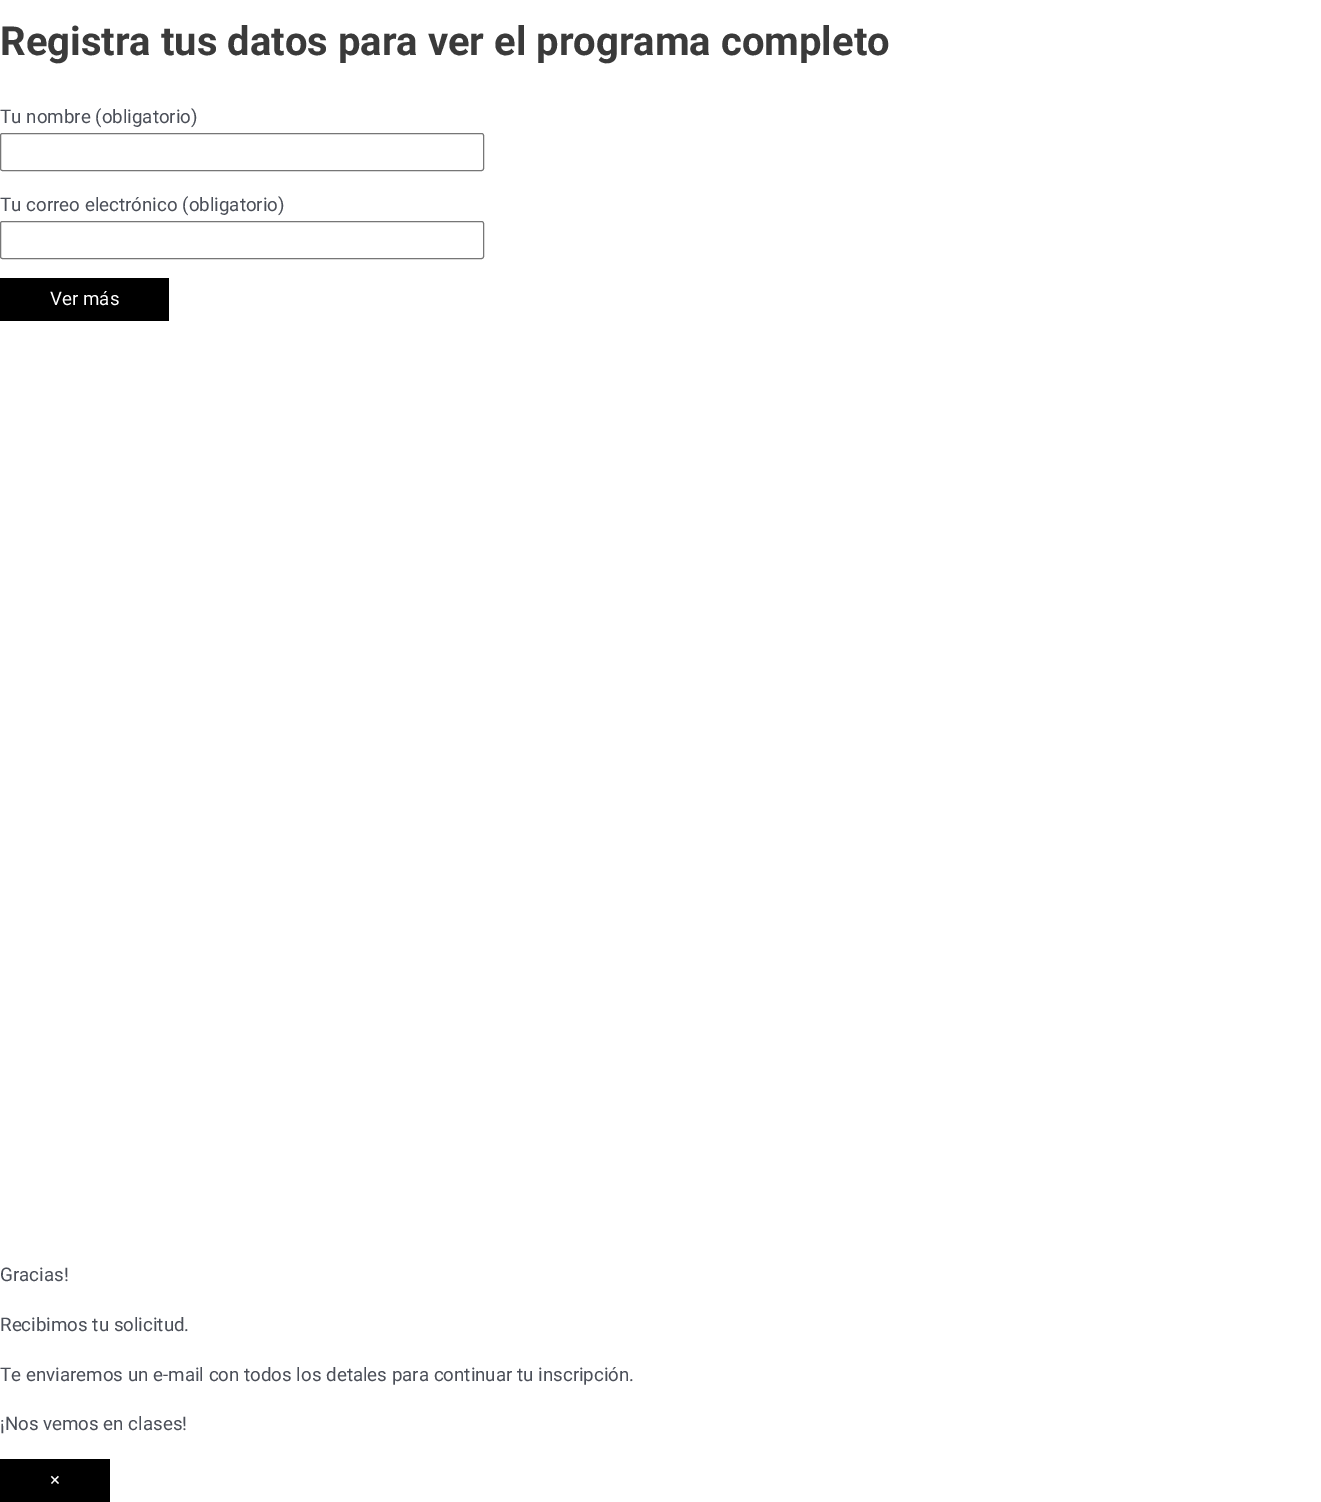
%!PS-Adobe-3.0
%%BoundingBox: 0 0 1321 1502
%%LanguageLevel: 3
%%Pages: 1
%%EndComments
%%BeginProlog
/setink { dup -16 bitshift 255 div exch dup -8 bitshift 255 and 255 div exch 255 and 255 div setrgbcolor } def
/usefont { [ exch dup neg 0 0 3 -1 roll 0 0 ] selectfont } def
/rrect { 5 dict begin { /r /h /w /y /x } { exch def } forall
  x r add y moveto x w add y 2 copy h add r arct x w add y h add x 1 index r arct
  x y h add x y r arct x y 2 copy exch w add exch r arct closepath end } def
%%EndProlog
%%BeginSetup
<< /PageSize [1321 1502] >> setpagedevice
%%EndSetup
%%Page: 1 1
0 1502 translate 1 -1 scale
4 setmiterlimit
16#FFFFFF setink
0 0 1321 1502 rectfill
/Roboto-Bold 40 usefont
16#3A3A3A setink
0 55 moveto (Registra tus datos para ver el programa completo) show
/Roboto-Regular 18.75 usefont
16#4B4F58 setink
0 123 moveto (Tu nombre \(obligatorio\)) show
16#767676 setink
0.5 133.5 483 37 2 rrect stroke
16#4B4F58 setink
0 211 moveto (Tu correo electrónico \(obligatorio\)) show
16#767676 setink
0.5 221.5 483 37 2 rrect stroke
16#000000 setink
0 278 169 43 rectfill
16#FFFFFF setink
50 305 moveto (Ver más) show
16#4B4F58 setink
[
    [(Gracias!) 0 1281]
    [(Recibimos tu solicitud.) 0 1331]
    [(Te enviaremos un e-mail con todos los detales para continuar tu inscripción.) 0 1381]
    [(¡Nos vemos en clases!) 0 1430]
] { aload pop moveto show } forall
16#000000 setink
0 1459 110 43 rectfill
16#FFFFFF setink
50 1486 moveto (×) show
showpage
%%EOF
